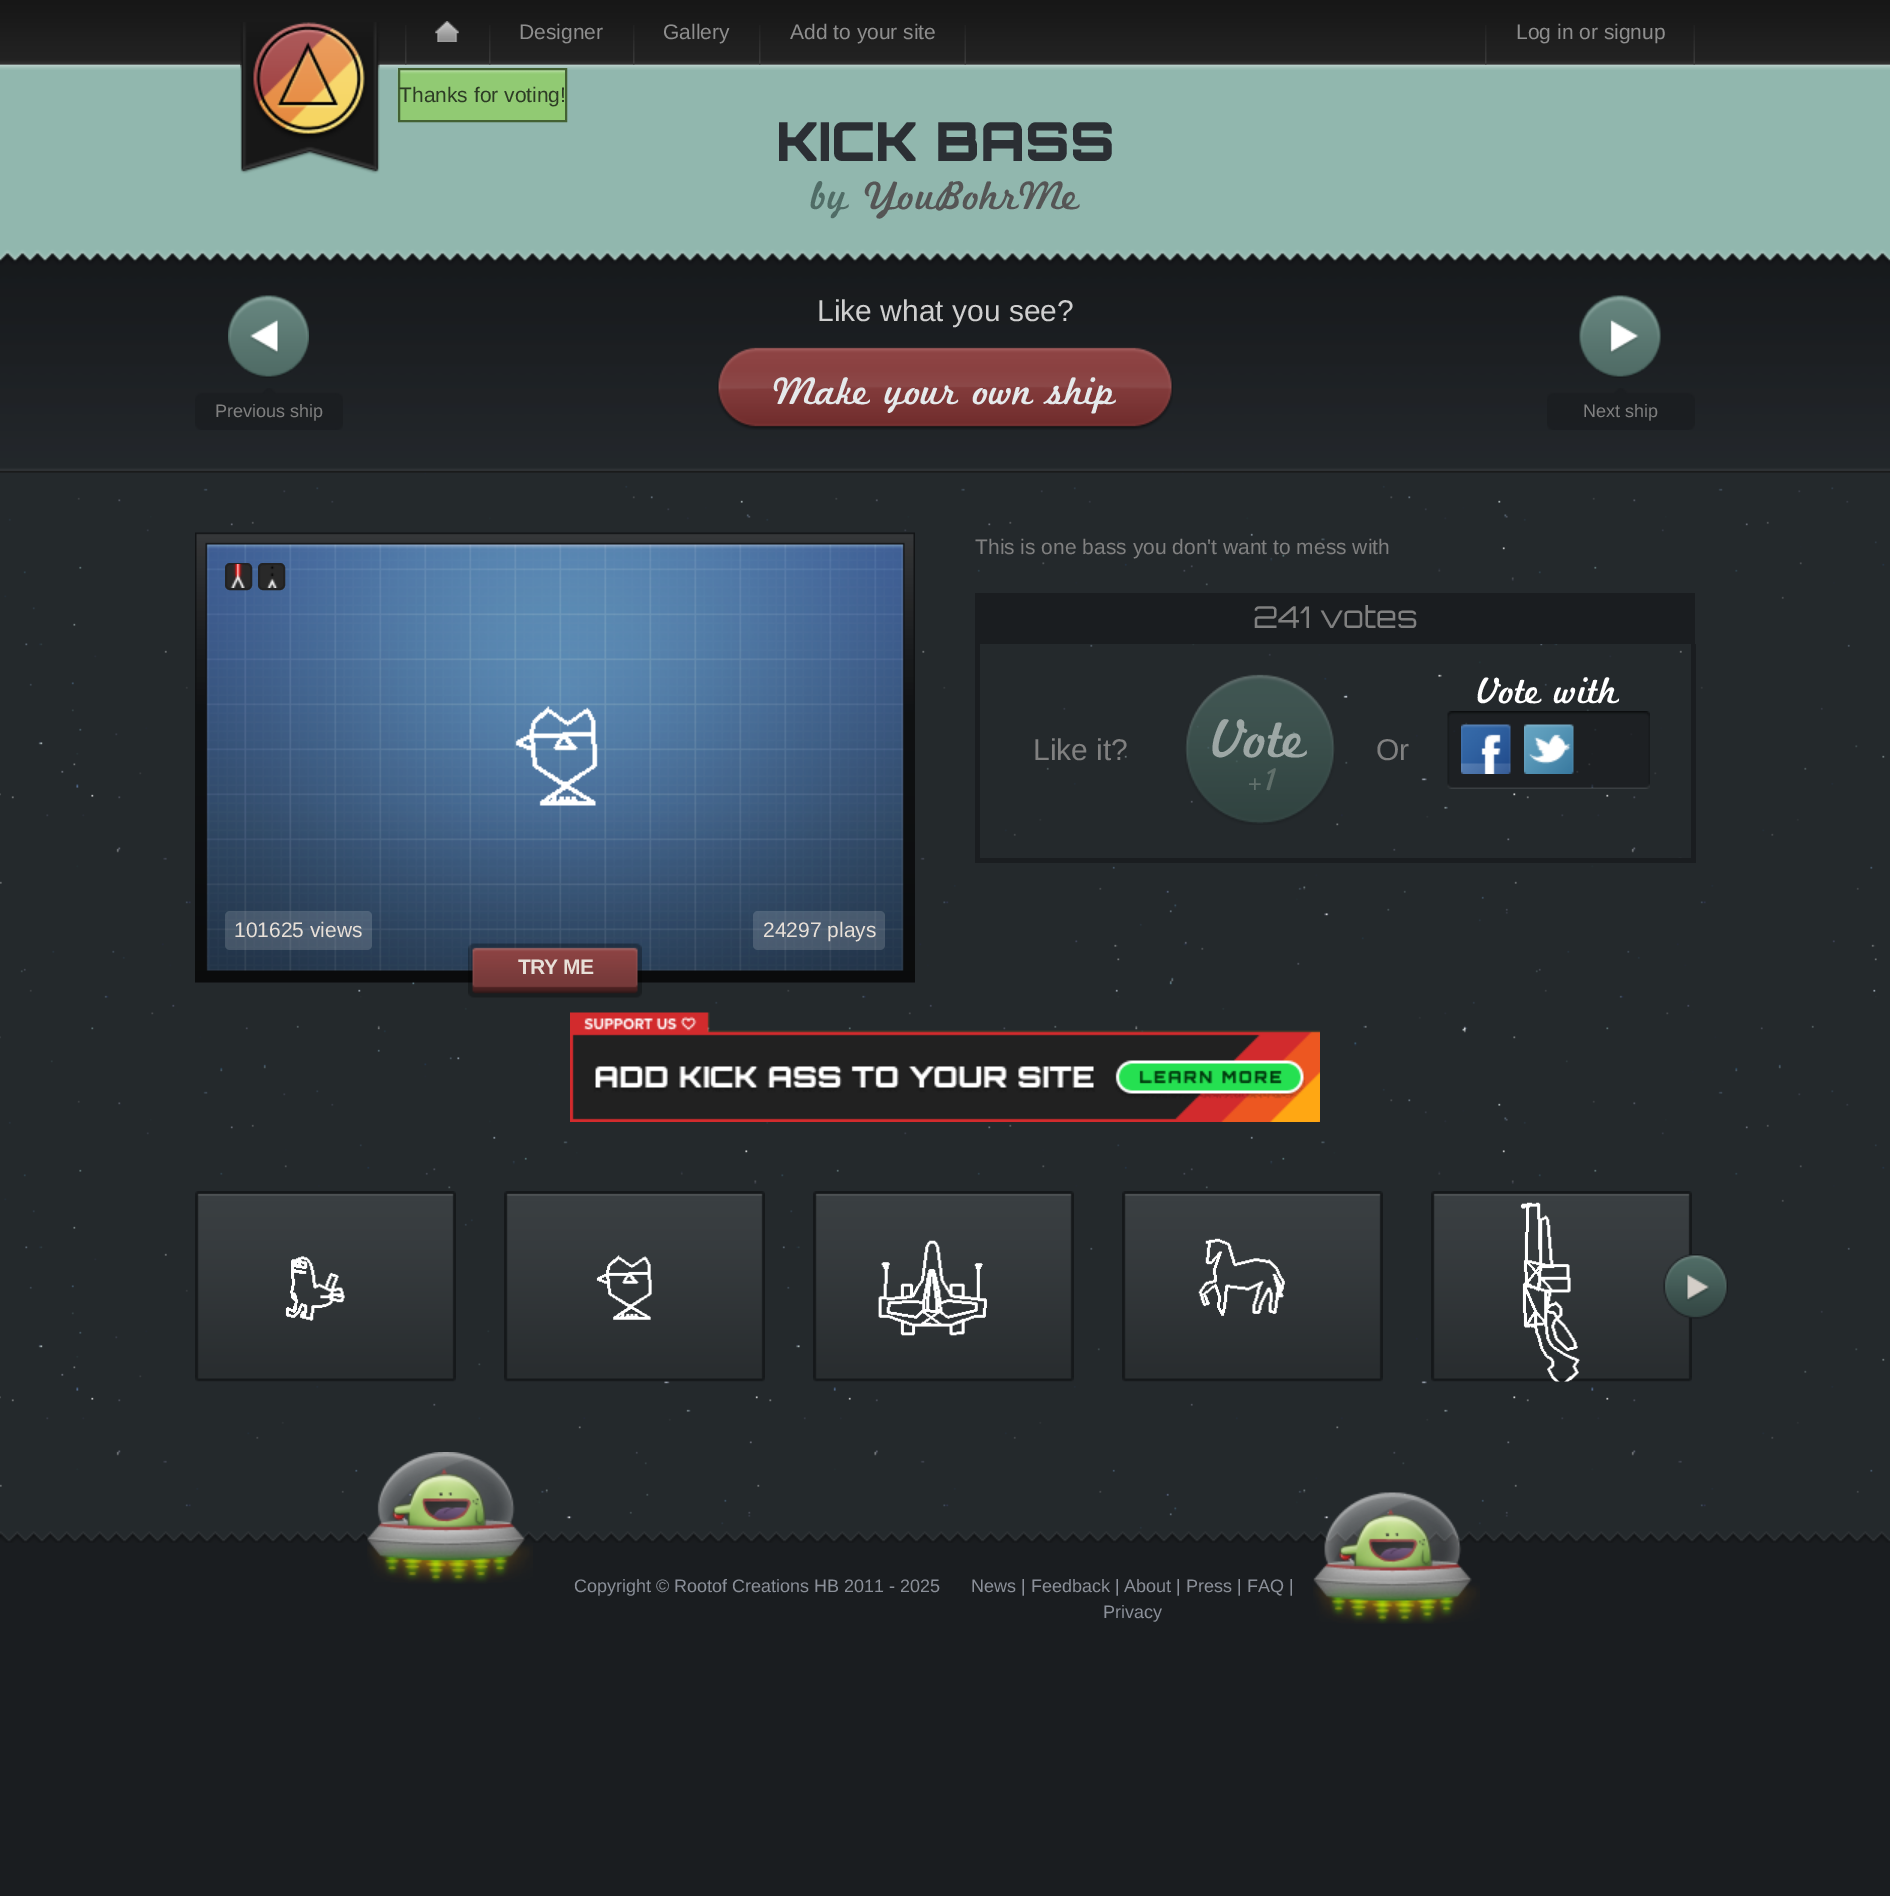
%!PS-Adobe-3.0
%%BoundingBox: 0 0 1890 1896
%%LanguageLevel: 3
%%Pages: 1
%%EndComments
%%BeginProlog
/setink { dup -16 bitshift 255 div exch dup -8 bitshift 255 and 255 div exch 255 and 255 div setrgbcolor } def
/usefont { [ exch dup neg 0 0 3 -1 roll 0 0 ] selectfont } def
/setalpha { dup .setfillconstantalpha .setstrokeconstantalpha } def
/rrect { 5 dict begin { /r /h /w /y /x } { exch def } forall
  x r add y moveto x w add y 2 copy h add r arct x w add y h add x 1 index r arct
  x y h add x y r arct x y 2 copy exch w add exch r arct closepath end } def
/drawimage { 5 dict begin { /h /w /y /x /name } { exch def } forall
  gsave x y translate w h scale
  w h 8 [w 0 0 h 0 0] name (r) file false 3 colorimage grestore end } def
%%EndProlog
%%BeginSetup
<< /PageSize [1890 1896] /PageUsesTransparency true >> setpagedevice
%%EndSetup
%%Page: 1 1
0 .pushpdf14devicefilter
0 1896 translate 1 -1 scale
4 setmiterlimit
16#1A1D20 setink
0 0 1890 1896 rectfill
(img7.raw) 0 64 1890 1468 drawimage
(img8.raw) 0 64 1890 409 drawimage
(img1.raw) 0 0 1890 70 drawimage
(img2.raw) 240 22 140 152 drawimage
(img3.raw) 964 25 2 40 drawimage
(img4.raw) 405 25 2 40 drawimage
(img5.raw) 435 21 24 21 drawimage
(img4.raw) 489 25 2 40 drawimage
/LiberationSans-Regular 21 usefont
16#8E8E8E setink
519 39 moveto (Designer) show
(img4.raw) 633 25 2 40 drawimage
663 39 moveto (Gallery) show
(img4.raw) 759 25 2 40 drawimage
790 39 moveto (Add to your site) show
(img3.raw) 1693 25 2 40 drawimage
(img4.raw) 1485 25 2 40 drawimage
1516 39 moveto (Log in or signup) show
(img6.raw) 397 69 168 53 drawimage
16#436133 setink
2 setlinewidth
399 69 167 52 rectstroke
16#2D3C25 setink
399 102 moveto (Thanks for voting!) show
/Orbitron-Black 54 usefont
16#2B2F34 setink
776 161 moveto (KICK BASS) show
/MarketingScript-Regular 42 usefont
16#506C66 setink
811 209 moveto (by) show
16#555555 setink
864 209 moveto (YouBohrMe) show
/LiberationSans-Regular 30 usefont
16#CFCFCF setink
817 321 moveto (Like what you see?) show
(img9.raw) 228 295 81 83 drawimage
(img10.raw) 195 388 148 42 drawimage
/LiberationSans-Regular 18 usefont
16#808080 setink
215 417 moveto (Previous ship) show
(img11.raw) 717 347 456 83 drawimage
/MarketingScript-Regular 40.5 usefont
16#E5E9EB setink
773 404 moveto (Make your own ship) show
(img12.raw) 1579 295 82 83 drawimage
(img13.raw) 1547 388 148 42 drawimage
/LiberationSans-Regular 18 usefont
16#808080 setink
1583 417 moveto (Next ship) show
/LiberationSans-Regular 21 usefont
975 554 moveto (This is one bass you don't want to mess with) show
16#1A1D20 setink
975 593 720 51 rectfill
/Orbitron-Regular 30 usefont
16#808080 setink
1253 628 moveto (241 votes) show
[
    [1691 644 5 219 16#1A1D20]
    [975 858 720 5 16#1A1D20]
    [975 644 5 219 16#1A1D20]
] { aload pop setink rectfill } forall
/MarketingScript-Regular 39 usefont
16#FFFFFF setink
1478 703 moveto (Vote with) show
/LiberationSans-Regular 30 usefont
16#808080 setink
1033 760 moveto (Like it?) show
(img14.raw) 1185 674 150 151 drawimage
/MarketingScript-Regular 58 usefont
16#9DA7A5 setink
1213 757 moveto (Vote) show
/MarketingScript-Regular 33 usefont
16#61706B setink
1245 790 moveto (+1) show
/LiberationSans-Regular 30 usefont
16#808080 setink
1376 760 moveto (Or) show
(img15.raw) 1447 711 203 78 drawimage
(img16.raw) 1461 724 50 50 drawimage
(img17.raw) 1524 724 50 50 drawimage
(img18.raw) 195 532 720 451 drawimage
16#292929 setink
226 564 25 25 4 rrect gsave fill grestore
16#222222 setink
stroke
16#292929 setink
259 564 25 25 4 rrect gsave fill grestore
16#222222 setink
stroke
(img19.raw) 230 564 15 24 drawimage
(img20.raw) 266 565 12 23 drawimage
(img21.raw) 515 706 83 100 drawimage
0.15 setalpha
16#FFFFFF setink
225 911 147 39 5 rrect fill
/LiberationSans-Regular 21 usefont
1 setalpha
16#E8E0D8 setink
234 937 moveto (101625 views) show
0.15 setalpha
16#FFFFFF setink
753 911 132 39 5 rrect fill
1 setalpha
16#E8E0D8 setink
763 937 moveto (24297 plays) show
(img22.raw) 468 943 174 55 drawimage
/LiberationSans-Bold 21 usefont
518 974 moveto -0.75 0 (TRY ME) ashow
(img23.raw) 570 1012 750 110 drawimage
(img24.raw) 195 1191 261 191 drawimage
(img25.raw) 285 1256 60 65 drawimage
(img26.raw) 504 1191 261 191 drawimage
(img27.raw) 596 1255 56 65 drawimage
(img24.raw) 813 1191 261 191 drawimage
(img28.raw) 878 1240 109 96 drawimage
(img29.raw) 1122 1191 261 191 drawimage
(img30.raw) 1198 1238 87 78 drawimage
(img24.raw) 1431 1191 261 191 drawimage
(img31.raw) 1520 1202 60 180 drawimage
(img32.raw) 1663 1254 65 65 drawimage
(img33.raw) 0 1531 1890 12 drawimage
(img34.raw) 367 1452 166 132 drawimage
/LiberationSans-Regular 18 usefont
16#8B9099 setink
[
    [(Copyright © Rootof Creations HB 2011 - 2025) 574 1592]
    [(News | Feedback | About | Press | FAQ |) 971 1592]
    [(Privacy) 1103 1618]
] { aload pop moveto show } forall
(img35.raw) 1313 1492 167 132 drawimage
.poppdf14devicefilter showpage
%%EOF
